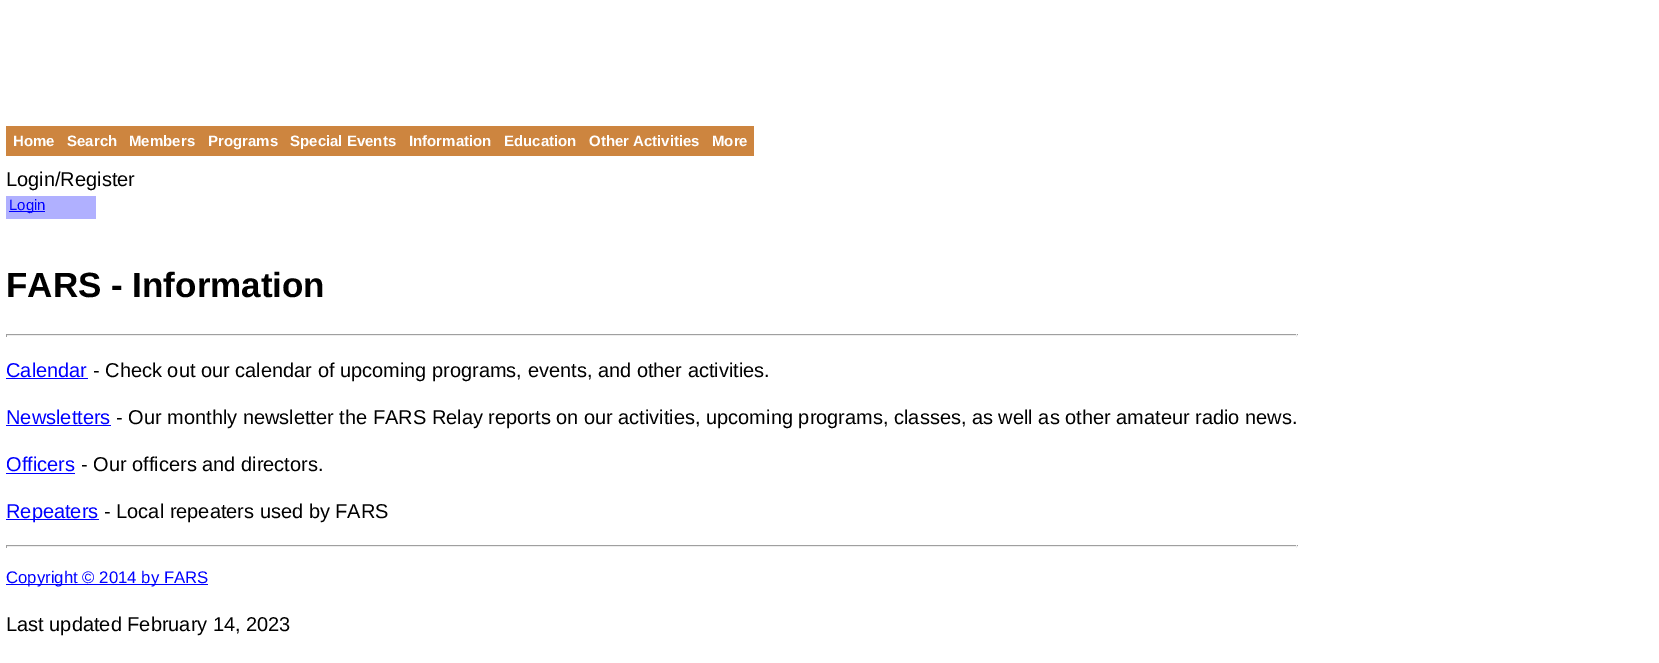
%!PS-Adobe-3.0
%%BoundingBox: 0 0 1659 663
%%LanguageLevel: 3
%%Pages: 1
%%EndComments
%%BeginProlog
/setink { dup -16 bitshift 255 div exch dup -8 bitshift 255 and 255 div exch 255 and 255 div setrgbcolor } def
/usefont { [ exch dup neg 0 0 3 -1 roll 0 0 ] selectfont } def
%%EndProlog
%%BeginSetup
<< /PageSize [1659 663] >> setpagedevice
%%EndSetup
%%Page: 1 1
0 663 translate 1 -1 scale
4 setmiterlimit
16#FFFFFF setink
0 0 1659 663 rectfill
16#CD853F setink
6 126 748 30 rectfill
/LiberationSans-Bold 15 usefont
16#FFFFFF setink
[
    [(Home) 13 146]
    [(Search) 67 146]
    [(Members) 129 146]
    [(Programs) 208 146]
    [(Special Events) 290 146]
    [(Information) 409 146]
    [(Education) 504 146]
    [(Other Activities) 589 146]
    [(More) 712 146]
] { aload pop moveto show } forall
/LiberationSans-Regular 20 usefont
16#000000 setink
6 186 moveto (Login/Register) show
16#B0B0FF setink
6 196 90 23 rectfill
16#0000FF setink
9 211 36 1 rectfill
/LiberationSans-Regular 15 usefont
9 210 moveto (Login) show
/LiberationSans-Bold 35 usefont
16#000000 setink
6 297 moveto (FARS - Information) show
[
    [6 334 1292 1 16#9F9F9F]
    [1296 334 1 3 16#EEEEEE]
    [6 335 1292 1 16#EEEEEE]
    [6 334 1 3 16#9F9F9F]
] { aload pop setink rectfill } forall
/LiberationSans-Regular 20 usefont
16#0000FF setink
6 377 moveto (Calendar) show
6 378 82 1 rectfill
16#000000 setink
93 377 moveto (- Check out our calendar of upcoming programs, events, and other activities.) show
16#0000FF setink
6 424 moveto (Newsletters) show
6 425 105 1 rectfill
16#000000 setink
116 424 moveto (- Our monthly newsletter the FARS Relay reports on our activities, upcoming programs, classes, as well as other amateur radio news.) show
16#0000FF setink
6 471 moveto (Officers) show
6 473 69 1 rectfill
16#000000 setink
81 471 moveto (- Our officers and directors.) show
16#0000FF setink
6 519 93 1 rectfill
6 518 moveto (Repeaters) show
16#000000 setink
104 518 moveto (- Local repeaters used by FARS) show
[
    [6 545 1292 1 16#9F9F9F]
    [1296 545 1 3 16#EEEEEE]
    [6 546 1292 1 16#EEEEEE]
    [6 545 1 3 16#9F9F9F]
    [6 584 202 1 16#0000FF]
] { aload pop setink rectfill } forall
/LiberationSans-Regular 16.75 usefont
6 583 moveto (Copyright © 2014 by FARS) show
/LiberationSans-Regular 20 usefont
16#000000 setink
6 631 moveto (Last updated February 14, 2023) show
showpage
%%EOF
